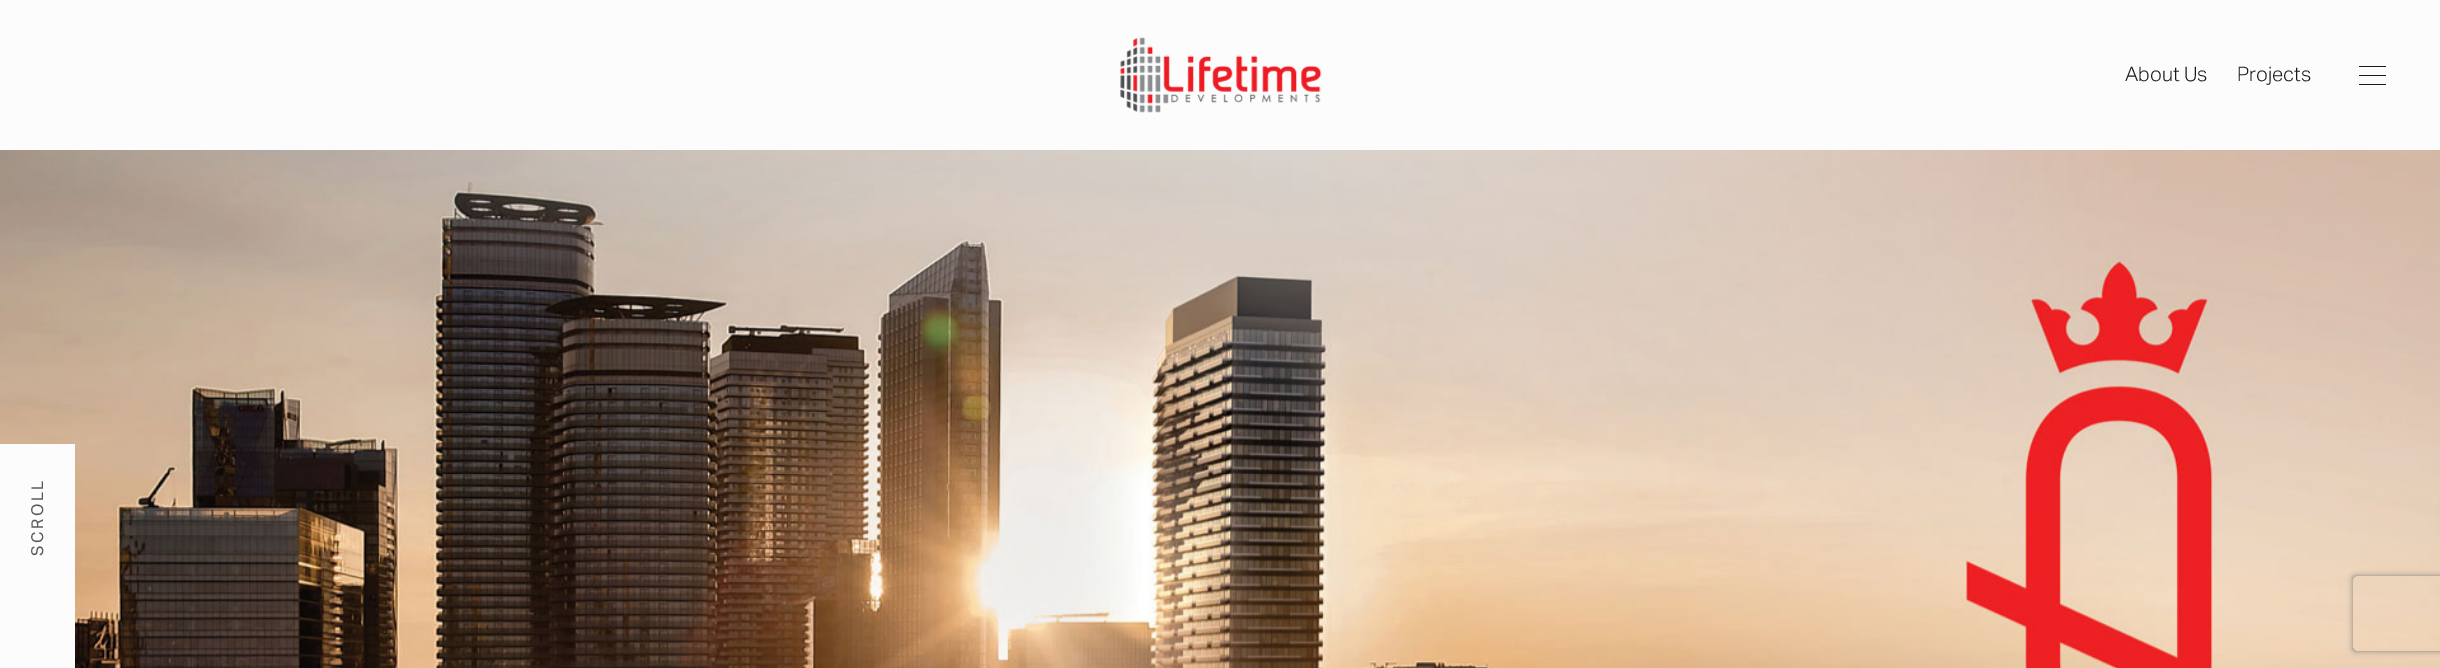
%!PS-Adobe-3.0
%%BoundingBox: 0 0 2440 668
%%LanguageLevel: 3
%%Pages: 1
%%EndComments
%%BeginProlog
/setink { dup -16 bitshift 255 div exch dup -8 bitshift 255 and 255 div exch 255 and 255 div setrgbcolor } def
/usefont { [ exch dup neg 0 0 3 -1 roll 0 0 ] selectfont } def
/setalpha { dup .setfillconstantalpha .setstrokeconstantalpha } def
/rrect { 5 dict begin { /r /h /w /y /x } { exch def } forall
  x r add y moveto x w add y 2 copy h add r arct x w add y h add x 1 index r arct
  x y h add x y r arct x y 2 copy exch w add exch r arct closepath end } def
/softshadow { 12 dict begin { /a /b /q /h /w /y /x } { exch def } forall gsave /was 0 def
  9 -2 -9 { dup b mul 4 div /e exch def 1 sub .425 mul 2.718 exch exp 1 add a .99 .min exch div /now exch def
    1 1 now sub 1 was sub div sub setalpha /was now def
    w h .min e 2 mul add 0 gt { x e sub y e sub w e 2 mul add h e 2 mul add
      q e add b .6 mul add w h .min 2 div e add .min 0 .max rrect fill } if } for grestore end } def
/drawimage { 5 dict begin { /h /w /y /x /name } { exch def } forall
  gsave x y translate w h scale
  w h 8 [w 0 0 h 0 0] name (r) file false 3 colorimage grestore end } def
%%EndProlog
%%BeginSetup
<< /PageSize [2440 668] /PageUsesTransparency true >> setpagedevice
%%EndSetup
%%Page: 1 1
0 .pushpdf14devicefilter
0 668 translate 1 -1 scale
4 setmiterlimit
16#FCFCFC setink
0 0 2440 668 rectfill
(img1.raw) 1120 37 202 76 drawimage
/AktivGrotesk-Light 20 usefont
16#191919 setink
2125 81 moveto (About Us) show
2237 81 moveto (Projects) show
2359.5 66 moveto 2373 66 lineto 2373 67 lineto 2359.5 67 lineto 2359 67 2359 67 2359 66.5 curveto 2359 66 2359 66 2359.5 66 curveto closepath fill
2373 66 moveto 2385.5 66 lineto 2386 66 2386 66 2386 66.5 curveto 2386 67 2386 67 2385.5 67 curveto 2373 67 lineto closepath fill
2359.5 75 moveto 2373 75 lineto 2373 76 lineto 2359.5 76 lineto 2359 76 2359 76 2359 75.5 curveto 2359 75 2359 75 2359.5 75 curveto closepath fill
2373 75 moveto 2385.5 75 lineto 2386 75 2386 75 2386 75.5 curveto 2386 76 2386 76 2385.5 76 curveto 2373 76 lineto closepath fill
2359.5 84 moveto 2373 84 lineto 2373 85 lineto 2359.5 85 lineto 2359 85 2359 85 2359 84.5 curveto 2359 84 2359 84 2359.5 84 curveto closepath fill
2373 84 moveto 2385.5 84 lineto 2386 84 2386 84 2386 84.5 curveto 2386 85 2386 85 2385.5 85 curveto 2373 85 lineto closepath fill
(img2.raw) 0 150 2440 518 drawimage
16#FCFCFC setink
0 444 75 224 rectfill
/AktivGrotesk-Regular 16.25 usefont
16#585858 setink
gsave 43 556 translate -90 rotate 0 0 moveto 2.5 0 (SCROLL) ashow grestore
gsave
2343 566 moveto 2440 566 lineto 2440 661 lineto 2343 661 lineto closepath 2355.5 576 moveto 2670.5 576 lineto 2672 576 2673 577 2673 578.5 curveto 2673 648.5 lineto 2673 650 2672 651 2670.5 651 curveto 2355.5 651 lineto 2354 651 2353 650 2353 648.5 curveto 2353 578.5 lineto 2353 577 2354 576 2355.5 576 curveto closepath eoclip newpath
16#808080 setink
2353 576 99 75 2.5 3 1 softshadow
grestore
.poppdf14devicefilter showpage
%%EOF
